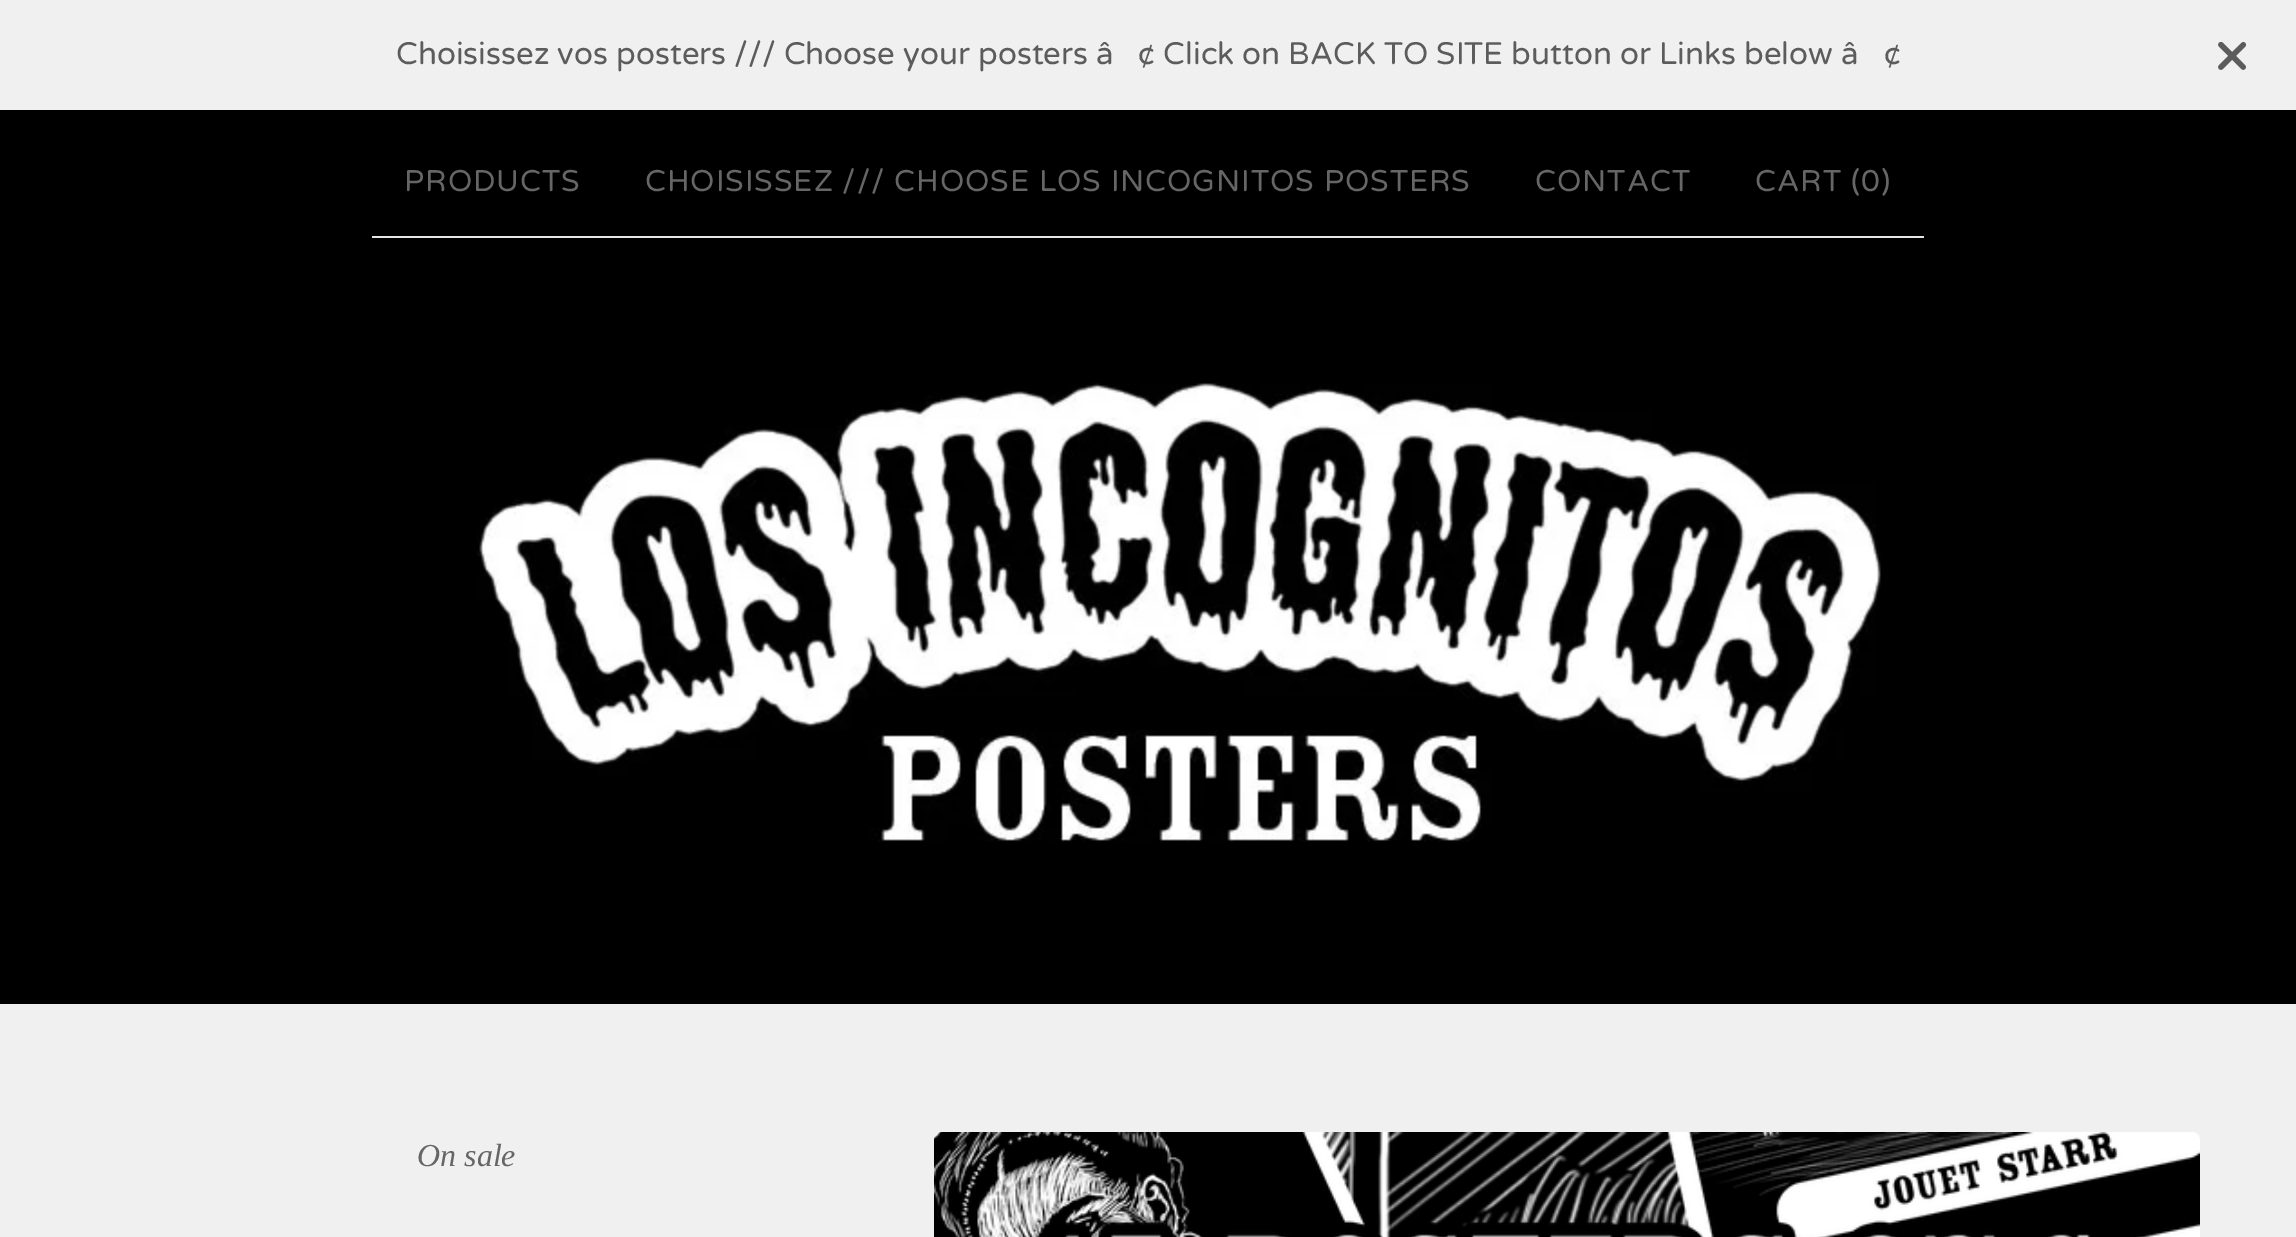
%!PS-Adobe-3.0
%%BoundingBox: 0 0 2296 1237
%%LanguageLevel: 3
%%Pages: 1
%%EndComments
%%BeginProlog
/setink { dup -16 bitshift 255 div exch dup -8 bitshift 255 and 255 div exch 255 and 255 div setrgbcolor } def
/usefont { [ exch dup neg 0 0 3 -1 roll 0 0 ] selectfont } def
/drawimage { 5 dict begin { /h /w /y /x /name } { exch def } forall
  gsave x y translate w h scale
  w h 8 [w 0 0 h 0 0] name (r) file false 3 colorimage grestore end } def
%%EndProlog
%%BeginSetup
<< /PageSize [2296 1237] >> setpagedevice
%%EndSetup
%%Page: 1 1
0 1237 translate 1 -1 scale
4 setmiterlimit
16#000000 setink
0 0 2296 1237 rectfill
16#F0F0F0 setink
0 0 2296 110 rectfill
/VarelaRound-Regular 31.2 usefont
16#5C5C5C setink
[
    [(Choisissez vos posters /// Choose your posters â) 396 64]
    [(¢ Click on BACK TO SITE button or Links below â) 1138 64]
    [(¢) 1884 64]
] { aload pop moveto show } forall
(img1.raw) 2218 42 28 28 drawimage
16#E5E5E5 setink
372 236 1552 2 rectfill
/VarelaRound-Regular 30 usefont
16#666666 setink
404 191 moveto 1 0 (PRODUCTS) ashow
645 191 moveto 1 0 (CHOISISSEZ /// CHOOSE LOS INCOGNITOS POSTERS) ashow
1535 191 moveto 1 0 (CONTACT) ashow
1755 191 moveto 1 0 (CART \(0\)) ashow
(img2.raw) 476 383 1405 459 drawimage
16#F0F0F0 setink
0 1004 2296 233 rectfill
/LiberationSerif-Italic 32 usefont
16#666666 setink
417 1166 moveto (On sale) show
(img3.raw) 934 1132 1266 105 drawimage
showpage
%%EOF
